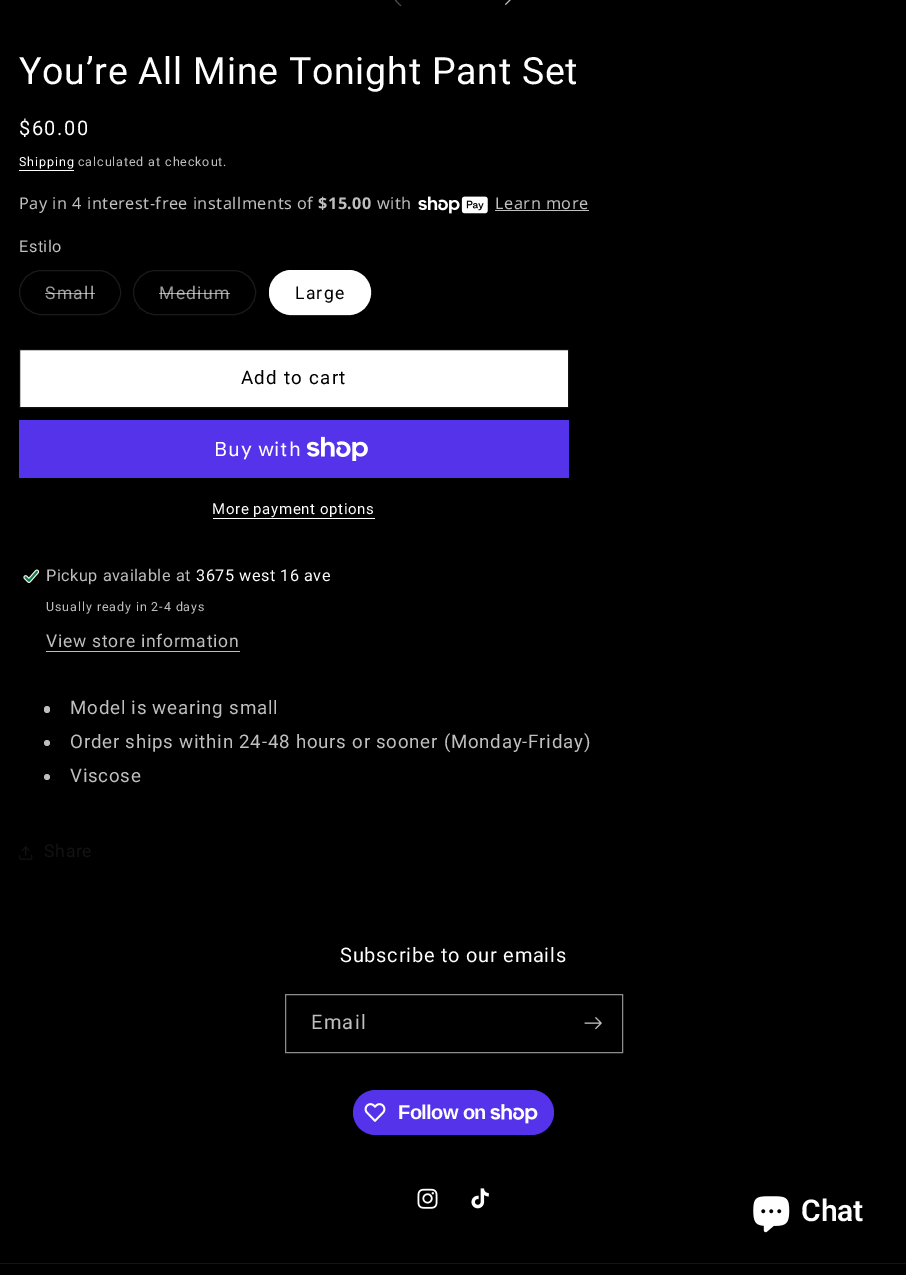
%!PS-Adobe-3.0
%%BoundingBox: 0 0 906 1275
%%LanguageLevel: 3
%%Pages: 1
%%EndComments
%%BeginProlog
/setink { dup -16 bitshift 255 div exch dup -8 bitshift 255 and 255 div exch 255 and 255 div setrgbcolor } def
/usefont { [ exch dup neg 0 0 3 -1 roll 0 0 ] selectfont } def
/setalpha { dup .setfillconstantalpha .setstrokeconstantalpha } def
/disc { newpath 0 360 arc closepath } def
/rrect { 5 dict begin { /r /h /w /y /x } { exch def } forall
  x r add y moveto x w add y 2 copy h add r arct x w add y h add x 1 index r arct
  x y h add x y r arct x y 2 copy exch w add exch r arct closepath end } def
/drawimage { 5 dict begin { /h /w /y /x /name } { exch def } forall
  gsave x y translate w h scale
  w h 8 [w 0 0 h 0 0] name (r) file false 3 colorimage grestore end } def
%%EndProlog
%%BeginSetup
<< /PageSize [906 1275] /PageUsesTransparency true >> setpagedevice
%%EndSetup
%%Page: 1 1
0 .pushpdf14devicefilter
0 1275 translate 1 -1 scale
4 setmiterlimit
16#000000 setink
0 0 906 1275 rectfill
(img1.raw) 395 0 7 7 drawimage
(img2.raw) 505 0 6 5 drawimage
/Roboto-Regular 37.5 usefont
16#FFFFFF setink
19 84 moveto 0.75 0 (You’re All Mine Tonight Pant Set) ashow
/Roboto-Regular 20 usefont
19 135 moveto 1.5 0 ($60.00) ashow
/Roboto-Regular 12.5 usefont
19 166 moveto 0.9 0 (Shipping) ashow
19 170 55 1 rectfill
16#BFBFBF setink
78 166 moveto 0.9 0 (calculated at checkout.) ashow
/NotoSans-Regular 16.25 usefont
19 209 moveto 0.5 0 (Pay in 4 interest-free installments of) ashow
/NotoSans-Bold 16.25 usefont
318 209 moveto 0.5 0 ($15.00) ashow
/NotoSans-Regular 16.25 usefont
377 209 moveto 0.5 0 (with) ashow
(img3.raw) 418 196 70 18 drawimage
495 209 moveto 0.5 0 (Learn more) ashow
495 210 94 1 rectfill
/Roboto-Regular 16.25 usefont
19 252 moveto 0.5 0 (Estilo) ashow
16#1A1A1A setink
19.5 270.5 101 44 22 rrect stroke
/Roboto-Regular 17.5 usefont
16#999999 setink
45 299 moveto 1.25 0 (Small) ashow
0.6 setalpha
16#FFFFFF setink
45 293 50 1 rectfill
1 setalpha
16#1A1A1A setink
133.5 270.5 122 44 22 rrect stroke
16#999999 setink
159 299 moveto 1.25 0 (Medium) ashow
0.6 setalpha
16#FFFFFF setink
159 293 71 1 rectfill
1 setalpha
269 270 102 45 22.5 rrect fill
0.55 setalpha
269.5 270.5 101 44 22 rrect stroke
1 setalpha
16#000000 setink
295 299 moveto 1.25 0 (Large) ashow
16#FFFFFF setink
20 350 548 57 rectfill
16#121212 setink
19.5 349.5 549 58 rectstroke
/Roboto-Regular 18.75 usefont
16#000000 setink
241 384 moveto 1.25 0 (Add to cart) ashow
16#5433EB setink
19 420 550 58 rectfill
/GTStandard-Regular 20 usefont
16#FFFFFF setink
214 456 moveto 0.75 0 (Buy with) ashow
(img4.raw) 306 436 62 25 drawimage
/Roboto-Regular 15 usefont
212 514 moveto 0.6 0 (More payment options) ashow
213 518 162 1 rectfill
(img5.raw) 23 569 17 14 drawimage
/Roboto-Regular 16.25 usefont
16#BFBFBF setink
46 581 moveto 0.5 0 (Pickup available at) ashow
16#FFFFFF setink
196 581 moveto 0.5 0 (3675 west 16 ave) ashow
/Roboto-Regular 12.5 usefont
16#BFBFBF setink
46 611 moveto 0.9 0 (Usually ready in 2-4 days) ashow
/Roboto-Regular 17.5 usefont
46 647 moveto 0.75 0 (View store information) ashow
46 651 194 1 rectfill
44 706 6 7 3 rrect fill
/Roboto-Regular 18.75 usefont
70 714 moveto 0.75 0 (Model is wearing small) ashow
47 743 3 disc fill
70 748 moveto 0.75 0 (Order ships within 24-48 hours or sooner \(Monday-Friday\)) ashow
47 777 3 disc fill
70 782 moveto 0.75 0 (Viscose) ashow
(img6.raw) 19 846 14 14 drawimage
/Roboto-Regular 17.5 usefont
16#121212 setink
44 857 moveto 0.75 0 (Share) ashow
/Roboto-Regular 20 usefont
16#FFFFFF setink
340 962 moveto 0.75 0 (Subscribe to our emails) ashow
16#8C8C8C setink
285.5 994.5 337 58 rectstroke
16#BFBFBF setink
311 1029 moveto 1.25 0 (Email) ashow
(img7.raw) 584 1017 18 13 drawimage
16#5433EB setink
353 1090 201 45 22.5 rrect fill
(img8.raw) 364 1103 22 19 drawimage
/LiberationSans-Bold 20 usefont
16#FFFFFF setink
398 1119 moveto -0.6 0 (Follow on) ashow
(img9.raw) 490 1104 48 20 drawimage
(img10.raw) 417 1188 21 21 drawimage
(img11.raw) 471 1188 18 21 drawimage
16#141414 setink
0 1263 906 1 rectfill
(img12.raw) 753 1196 37 37 drawimage
/Roboto-SemiBold 30 usefont
16#FFFFFF setink
801 1221 moveto (Chat) show
.poppdf14devicefilter showpage
%%EOF
